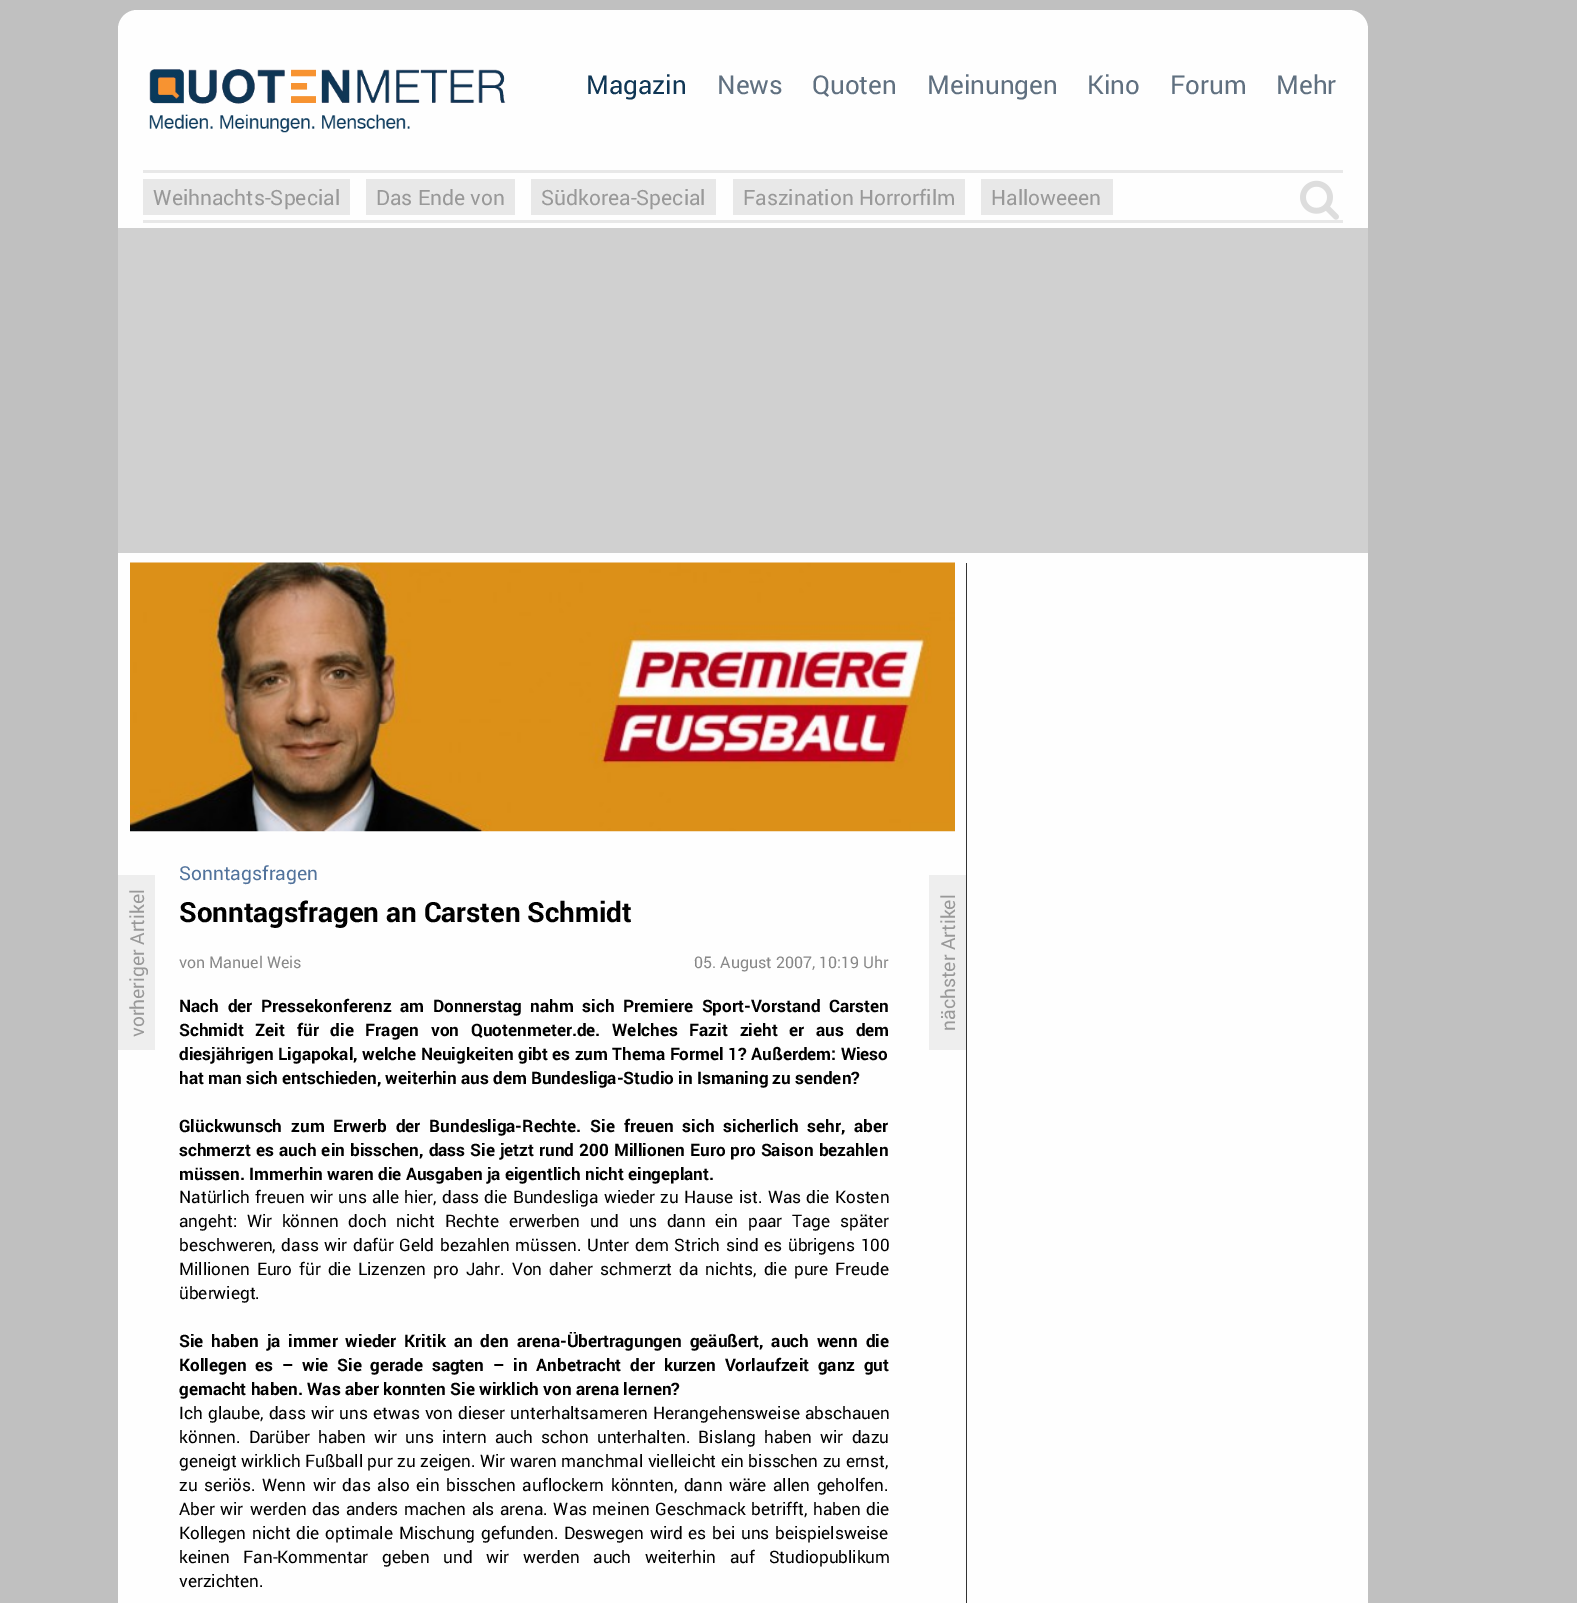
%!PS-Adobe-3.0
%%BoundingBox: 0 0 1577 1603
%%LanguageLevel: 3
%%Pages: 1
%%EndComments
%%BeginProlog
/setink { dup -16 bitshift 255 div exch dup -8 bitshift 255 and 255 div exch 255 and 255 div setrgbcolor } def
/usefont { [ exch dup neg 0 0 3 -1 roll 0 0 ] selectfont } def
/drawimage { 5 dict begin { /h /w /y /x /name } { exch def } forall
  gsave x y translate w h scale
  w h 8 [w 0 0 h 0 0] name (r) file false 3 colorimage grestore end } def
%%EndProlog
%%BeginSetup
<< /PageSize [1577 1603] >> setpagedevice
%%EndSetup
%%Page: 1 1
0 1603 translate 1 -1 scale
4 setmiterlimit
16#C0C0C0 setink
0 0 1577 1603 rectfill
16#FEFEFE setink
118 170 1250 1433 rectfill
137 10 moveto 1349 10 lineto 1359.5 10 1368 18.5 1368 29 curveto 1368 170 lineto 118 170 lineto 118 29 lineto 118 18.5 126.5 10 137 10 curveto closepath fill
(img1.raw) 149 69 357 64 drawimage
/Roboto-Regular 26 usefont
16#0F3655 setink
586 94 moveto (Magazin) show
16#607080 setink
[
    [(News) 717 94]
    [(Quoten) 812 94]
    [(Meinungen) 927 94]
    [(Kino) 1087 94]
    [(Forum) 1170 94]
    [(Mehr) 1276 94]
] { aload pop moveto show } forall
[
    [143 170 1200 3 16#E8E8E8]
    [143 220 1200 3 16#E8E8E8]
    [143 179 207 36 16#E8E8E8]
] { aload pop setink rectfill } forall
/Roboto-Regular 21 usefont
16#999999 setink
153 205 moveto (Weihnachts-Special) show
16#E8E8E8 setink
366 179 149 36 rectfill
16#999999 setink
376 205 moveto (Das Ende von) show
16#E8E8E8 setink
531 179 185 36 rectfill
16#999999 setink
541 205 moveto (Südkorea-Special) show
16#E8E8E8 setink
733 179 232 36 rectfill
16#999999 setink
743 205 moveto (Faszination Horrorfilm) show
16#E8E8E8 setink
981 179 132 36 rectfill
16#999999 setink
991 205 moveto (Halloweeen) show
(img2.raw) 1300 180 39 40 drawimage
16#D0D0D0 setink
118 228 1250 325 rectfill
(img3.raw) 130 562 825 270 drawimage
/Roboto-Regular 19.25 usefont
16#52739C setink
179 880 moveto (Sonntagsfragen) show
16#EEEEEE setink
118 875 37 175 rectfill
16#999999 setink
gsave 144 1037 translate -90 rotate 0 0 moveto (vorheriger Artikel) show grestore
/Roboto-Bold 27.8 usefont
16#000000 setink
179 922 moveto (Sonntagsfragen an Carsten Schmidt) show
16#EEEEEE setink
929 875 37 175 rectfill
/Roboto-Regular 19.25 usefont
16#999999 setink
gsave 955 1031 translate -90 rotate 0 0 moveto (nächster Artikel) show grestore
/Roboto-Regular 16 usefont
16#888888 setink
179 968 moveto (von Manuel Weis) show
694 968 moveto (05. August 2007, 10:19 Uhr) show
/Roboto-Bold 17.15 usefont
16#000000 setink
179 1012 moveto 4.4 0 32 (Nach der Pressekonferenz am Donnerstag nahm sich Premiere Sport-Vorstand Carsten) widthshow
179 1036 moveto 7.5 0 32 (Schmidt Zeit für die Fragen von Quotenmeter.de. Welches Fazit zieht er aus dem) widthshow
179 1060 moveto 0.25 0 32 (diesjährigen Ligapokal, welche Neuigkeiten gibt es zum Thema Formel 1? Außerdem: Wieso) widthshow
179 1084 moveto (hat man sich entschieden, weiterhin aus dem Bundesliga-Studio in Ismaning zu senden?) show
179 1132 moveto 4.75 0 32 (Glückwunsch zum Erwerb der Bundesliga-Rechte. Sie freuen sich sicherlich sehr, aber) widthshow
179 1156 moveto 0.75 0 32 (schmerzt es auch ein bisschen, dass Sie jetzt rund 200 Millionen Euro pro Saison bezahlen) widthshow
179 1180 moveto (müssen. Immerhin waren die Ausgaben ja eigentlich nicht eingeplant.) show
/Roboto-Regular 17.15 usefont
179 1203 moveto 1 0 32 (Natürlich freuen wir uns alle hier, dass die Bundesliga wieder zu Hause ist. Was die Kosten) widthshow
179 1227 moveto 5.4 0 32 (angeht: Wir können doch nicht Rechte erwerben und uns dann ein paar Tage später) widthshow
179 1251 moveto 1.4 0 32 (beschweren, dass wir dafür Geld bezahlen müssen. Unter dem Strich sind es übrigens 100) widthshow
179 1275 moveto 2.75 0 32 (Millionen Euro für die Lizenzen pro Jahr. Von daher schmerzt da nichts, die pure Freude) widthshow
179 1299 moveto (überwiegt.) show
/Roboto-Bold 17.15 usefont
179 1347 moveto 3.6 0 32 (Sie haben ja immer wieder Kritik an den arena-Übertragungen geäußert, auch wenn die) widthshow
179 1371 moveto 4.4 0 32 (Kollegen es – wie Sie gerade sagten – in Anbetracht der kurzen Vorlaufzeit ganz gut) widthshow
179 1395 moveto (gemacht haben. Was aber konnten Sie wirklich von arena lernen?) show
/Roboto-Regular 17.15 usefont
179 1419 moveto 1 0 32 (Ich glaube, dass wir uns etwas von dieser unterhaltsameren Herangehensweise abschauen) widthshow
179 1443 moveto 4 0 32 (können. Darüber haben wir uns intern auch schon unterhalten. Bislang haben wir dazu) widthshow
179 1467 moveto 0.25 0 32 (geneigt wirklich Fußball pur zu zeigen. Wir waren manchmal vielleicht ein bisschen zu ernst,) widthshow
179 1491 moveto 2.4 0 32 (zu seriös. Wenn wir das also ein bisschen auflockern könnten, dann wäre allen geholfen.) widthshow
179 1515 moveto 1 0 32 (Aber wir) widthshow
250 1515 moveto 1.25 0 32 (werden das anders machen als arena. Was meinen Geschmack betrifft, haben die) widthshow
179 1539 moveto 1.5 0 32 (Kollegen nicht die optimale Mischung gefunden. Deswegen wird es bei uns beispielsweise) widthshow
179 1563 moveto 9.5 0 32 (keinen Fan-Kommentar geben und wir werden auch weiterhin auf Studiopublikum) widthshow
179 1587 moveto (verzichten.) show
16#333333 setink
966 563 1 1040 rectfill
showpage
%%EOF
